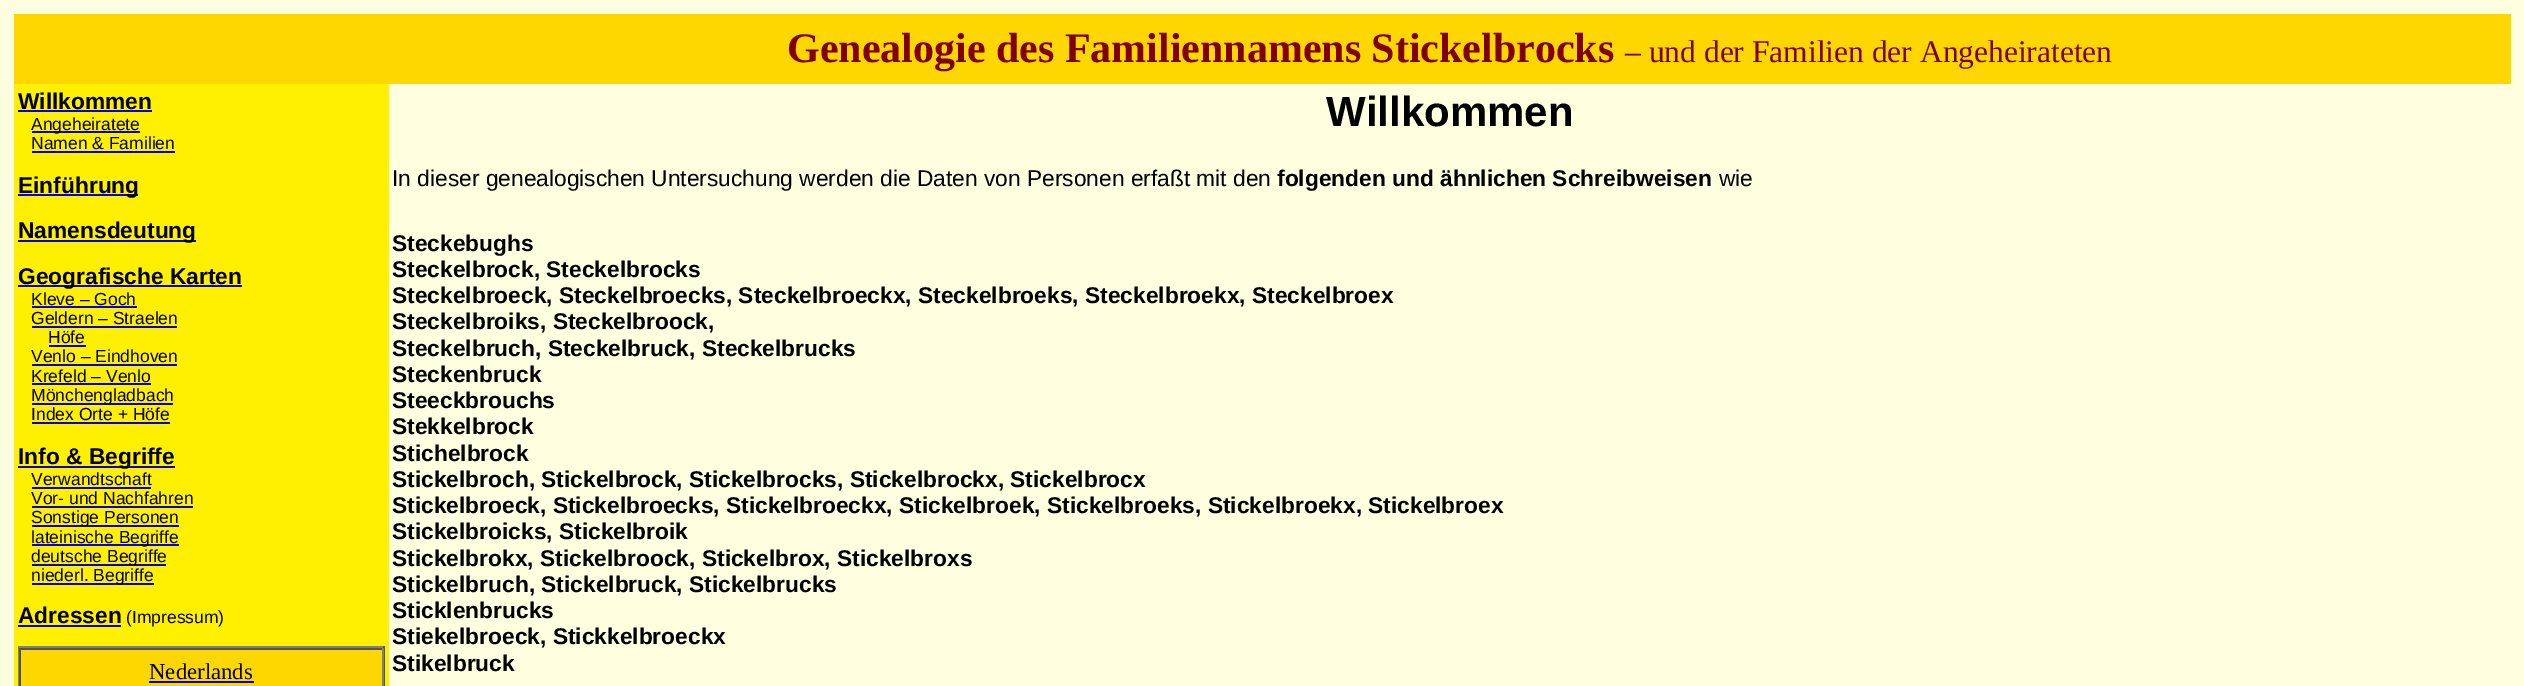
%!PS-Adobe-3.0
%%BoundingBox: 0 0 2524 686
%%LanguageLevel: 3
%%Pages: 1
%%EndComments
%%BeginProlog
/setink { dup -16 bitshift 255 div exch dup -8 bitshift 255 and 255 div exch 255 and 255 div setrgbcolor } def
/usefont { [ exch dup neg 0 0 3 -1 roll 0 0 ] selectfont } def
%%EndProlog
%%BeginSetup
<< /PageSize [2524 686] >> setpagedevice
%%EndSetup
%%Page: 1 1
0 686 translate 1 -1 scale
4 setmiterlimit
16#FFFFE0 setink
0 0 2524 686 rectfill
16#FFD700 setink
14 14 2497 70 rectfill
/LiberationSerif-Bold 42 usefont
16#800000 setink
787 62 moveto (Genealogie des Familiennamens Stickelbrocks) show
/LiberationSerif-Regular 31.5 usefont
1625 62 moveto (– und der Familien der Angeheirateten) show
16#FFF000 setink
14 84 375 602 rectfill
/LiberationSans-Bold 22.75 usefont
16#000000 setink
18 109 moveto (Willkommen) show
16#0000FF setink
18 110 134 2 rectfill
32 131 108 2 rectfill
/LiberationSans-Regular 17.5 usefont
16#000000 setink
31 130 moveto (Angeheiratete) show
31 149 moveto (Namen & Familien) show
16#0000FF setink
32 151 143 2 rectfill
18 194 120 2 rectfill
/LiberationSans-Bold 22.75 usefont
16#000000 setink
18 193 moveto (Einführung) show
16#0000FF setink
18 240 178 2 rectfill
16#000000 setink
18 238 moveto (Namensdeutung) show
16#0000FF setink
18 285 224 2 rectfill
16#000000 setink
18 284 moveto (Geografische Karten) show
/LiberationSans-Regular 17.5 usefont
31 305 moveto (Kleve – Goch) show
16#0000FF setink
32 306 105 2 rectfill
16#000000 setink
31 324 moveto (Geldern – Straelen) show
16#0000FF setink
32 326 145 2 rectfill
16#000000 setink
48 343 moveto (Höfe) show
16#0000FF setink
49 345 37 2 rectfill
16#000000 setink
31 362 moveto (Venlo – Eindhoven) show
16#0000FF setink
32 364 145 2 rectfill
16#000000 setink
31 382 moveto (Krefeld – Venlo) show
16#0000FF setink
32 383 119 2 rectfill
32 403 141 2 rectfill
16#000000 setink
31 401 moveto (Mönchengladbach) show
31 420 moveto (Index Orte + Höfe) show
16#0000FF setink
32 422 138 2 rectfill
18 466 157 2 rectfill
/LiberationSans-Bold 22.75 usefont
16#000000 setink
18 464 moveto (Info & Begriffe) show
/LiberationSans-Regular 17.5 usefont
31 485 moveto (Verwandtschaft) show
16#0000FF setink
32 487 119 2 rectfill
16#000000 setink
31 504 moveto (Vor- und Nachfahren) show
16#0000FF setink
32 506 161 2 rectfill
32 525 147 2 rectfill
16#000000 setink
31 523 moveto (Sonstige Personen) show
16#0000FF setink
32 544 147 2 rectfill
16#000000 setink
31 543 moveto (lateinische Begriffe) show
16#0000FF setink
32 564 134 2 rectfill
16#000000 setink
31 562 moveto (deutsche Begriffe) show
16#0000FF setink
32 583 122 2 rectfill
16#000000 setink
31 581 moveto (niederl. Begriffe) show
/LiberationSans-Bold 22.75 usefont
18 623 moveto (Adressen) show
16#0000FF setink
18 625 103 2 rectfill
/LiberationSans-Regular 17.5 usefont
16#000000 setink
126 623 moveto (\(Impressum\)) show
[
    [21 650 361 36 16#FFD700]
    [18 646 367 2 16#808080]
    [383 646 2 40 16#555555]
    [18 646 2 40 16#808080]
    [19 648 364 2 16#555555]
    [382 648 2 38 16#808080]
    [19 648 2 38 16#555555]
] { aload pop setink rectfill } forall
/LiberationSerif-Regular 22.75 usefont
16#000000 setink
149 679 moveto (Nederlands) show
16#0000FF setink
149 681 105 2 rectfill
/LiberationSans-Bold 42 usefont
16#000000 setink
1326 126 moveto (Willkommen) show
/LiberationSans-Regular 22.75 usefont
392 186 moveto (In dieser genealogischen Untersuchung werden die Daten von Personen erfaßt mit den) show
/LiberationSans-Bold 22.75 usefont
1277 186 moveto (folgenden und ähnlichen Schreibweisen) show
/LiberationSans-Regular 22.75 usefont
1719 186 moveto (wie) show
/LiberationSans-Bold 22.75 usefont
[
    [(Steckebughs) 392 251]
    [(Steckelbrock, Steckelbrocks) 392 277]
    [(Steckelbroeck, Steckelbroecks, Steckelbroeckx, Steckelbroeks, Steckelbroekx, Steckelbroex) 392 303]
    [(Steckelbroiks, Steckelbroock,) 392 329]
    [(Steckelbruch, Steckelbruck, Steckelbrucks) 392 356]
    [(Steckenbruck) 392 382]
    [(Steeckbrouchs) 392 408]
    [(Stekkelbrock) 392 434]
    [(Stichelbrock) 392 461]
    [(Stickelbroch, Stickelbrock, Stickelbrocks, Stickelbrockx, Stickelbrocx) 392 487]
    [(Stickelbroeck, Stickelbroecks, Stickelbroeckx, Stickelbroek, Stickelbroeks, Stickelbroekx, Stickelbroex) 392 513]
    [(Stickelbroicks, Stickelbroik) 392 539]
    [(Stickelbrokx, Stickelbroock, Stickelbrox, Stickelbroxs) 392 566]
    [(Stickelbruch, Stickelbruck, Stickelbrucks) 392 592]
    [(Sticklenbrucks) 392 618]
    [(Stiekelbroeck, Stickkelbroeckx) 392 644]
    [(Stikelbruck) 392 671]
] { aload pop moveto show } forall
showpage
%%EOF
